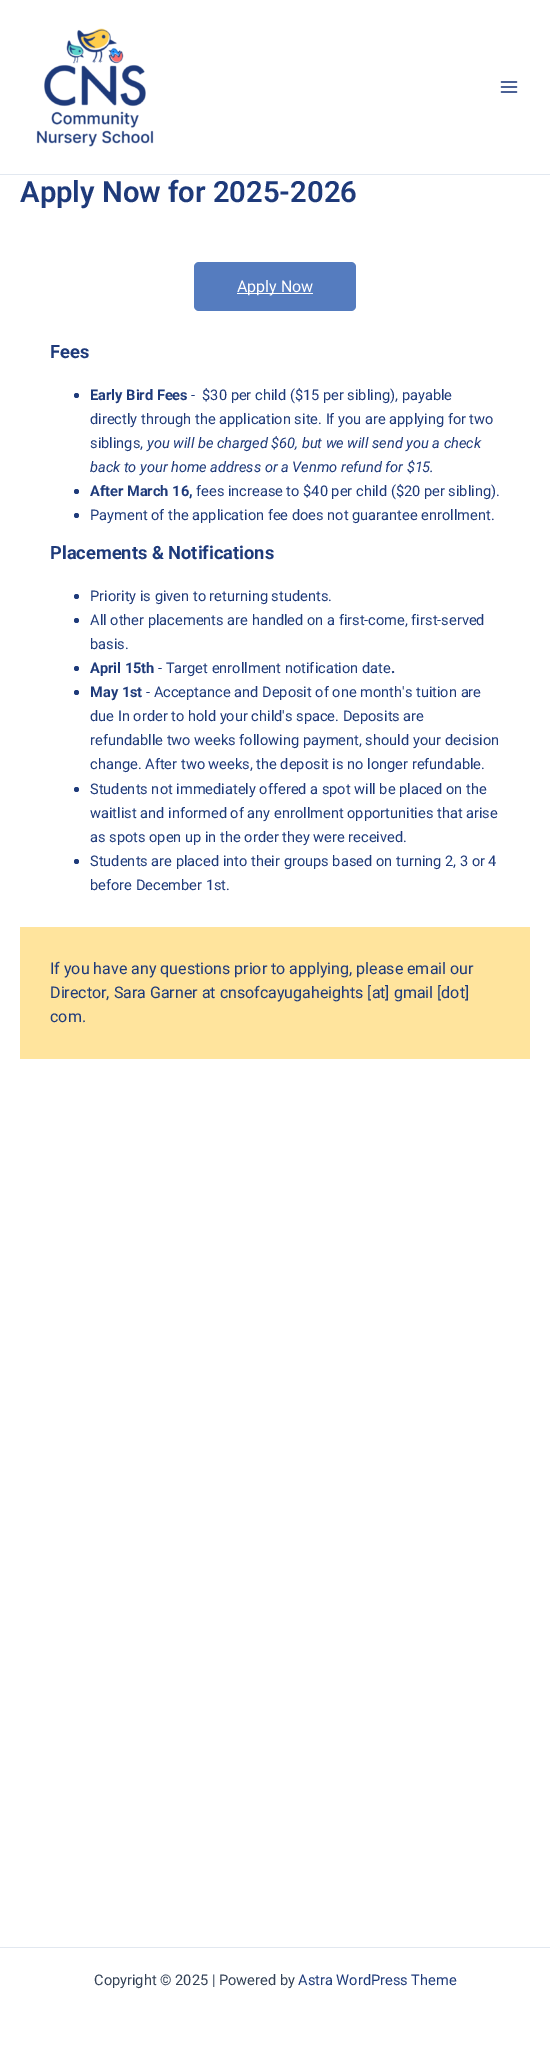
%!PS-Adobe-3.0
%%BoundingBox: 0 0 550 2068
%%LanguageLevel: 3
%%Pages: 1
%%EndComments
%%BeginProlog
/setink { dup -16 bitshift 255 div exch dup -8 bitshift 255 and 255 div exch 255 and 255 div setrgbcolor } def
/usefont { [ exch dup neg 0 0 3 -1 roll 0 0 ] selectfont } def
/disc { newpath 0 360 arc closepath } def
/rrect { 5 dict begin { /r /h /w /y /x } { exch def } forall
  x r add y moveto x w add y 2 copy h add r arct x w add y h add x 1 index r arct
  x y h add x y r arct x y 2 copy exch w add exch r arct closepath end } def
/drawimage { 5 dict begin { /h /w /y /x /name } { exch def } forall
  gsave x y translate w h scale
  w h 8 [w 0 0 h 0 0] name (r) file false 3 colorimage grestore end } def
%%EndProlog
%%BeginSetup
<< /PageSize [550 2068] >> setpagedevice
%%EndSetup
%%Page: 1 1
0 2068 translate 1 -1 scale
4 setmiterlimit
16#FFFFFF setink
0 0 550 2068 rectfill
16#E2E8F0 setink
0 174 550 1 rectfill
(img1.raw) 36 28 118 119 drawimage
(img2.raw) 500 81 18 12 drawimage
/Roboto-SemiBold 29.25 usefont
16#1E3A7A setink
20 202 moveto (Apply Now for 2025-2026) show
16#557CBF setink
194 262 162 49 5 rrect fill
16#FFFFFF setink
237 293 76 1 rectfill
/Roboto-Regular 16 usefont
237 292 moveto (Apply Now) show
/Roboto-Bold 18.25 usefont
16#1E3A7A setink
50 358 moveto (Fees) show
76.5 395.5 2.5 disc fill
/Roboto-Bold 14.6 usefont
90 400 moveto (Early Bird Fees) show
/Roboto-Regular 14.6 usefont
[
    [(-  $30 per child \($15 per sibling\), payable) 191 400]
    [(directly through the application site. If you are applying for two) 90 424]
    [(siblings,) 90 448]
] { aload pop moveto show } forall
/Roboto-Italic 14.6 usefont
147 448 moveto (you will be charged $60, but we will send you a check) show
90 472 moveto (back to your home address or a Venmo refund for $15.) show
76.5 491.5 2.5 disc fill
/Roboto-Bold 14.6 usefont
90 496 moveto (After March 16,) show
/Roboto-Regular 14.6 usefont
196 496 moveto (fees increase to $40 per child \($20 per sibling\).) show
76.5 515.5 2.5 disc fill
90 520 moveto (Payment of the application fee does not guarantee enrollment.) show
/Roboto-Bold 18.25 usefont
50 559 moveto (Placements & Notifications) show
76.5 596.5 2.5 disc fill
/Roboto-Regular 14.6 usefont
90 601 moveto (Priority is given to returning students.) show
76.5 620.5 2.5 disc fill
90 625 moveto (All other placements are handled on a first-come, first-served) show
90 649 moveto (basis.) show
76.5 668.5 2.5 disc fill
/Roboto-Bold 14.6 usefont
90 673 moveto (April 15th) show
/Roboto-Regular 14.6 usefont
158 673 moveto (- Target enrollment notification date) show
/Roboto-Bold 14.6 usefont
391 673 moveto (.) show
76.5 692.5 2.5 disc fill
90 697 moveto (May 1st) show
/Roboto-Regular 14.6 usefont
[
    [(- Acceptance and Deposit of one month's tuition are) 146 697]
    [(due In order to hold your child's space. Deposits are) 90 721]
    [(refundablle two weeks following payment, should your decision) 90 745]
    [(change. After two weeks, the deposit is no longer refundable.) 90 769]
] { aload pop moveto show } forall
76.5 789.5 2.5 disc fill
[
    [(Students not immediately offered a spot will be placed on the) 90 794]
    [(waitlist and informed of any enrollment opportunities that arise) 90 818]
    [(as spots open up in the order they were received.) 90 842]
] { aload pop moveto show } forall
76.5 861.5 2.5 disc fill
90 866 moveto (Students are placed into their groups based on turning 2, 3 or 4) show
90 890 moveto (before December 1st.) show
16#FFE49D setink
20 927 510 132 rectfill
/Roboto-Regular 16 usefont
16#1E3A7A setink
[
    [(If you have any questions prior to applying, please email our) 50 974]
    [(Director, Sara Garner at cnsofcayugaheights [at] gmail [dot]) 50 998]
    [(com.) 50 1022]
] { aload pop moveto show } forall
16#E2E8F0 setink
0 1947 550 1 rectfill
/Roboto-Regular 14.6 usefont
16#334155 setink
94 1985 moveto (Copyright © 2025 | Powered by) show
16#1E3A7A setink
298 1985 moveto (Astra WordPress Theme) show
showpage
%%EOF
